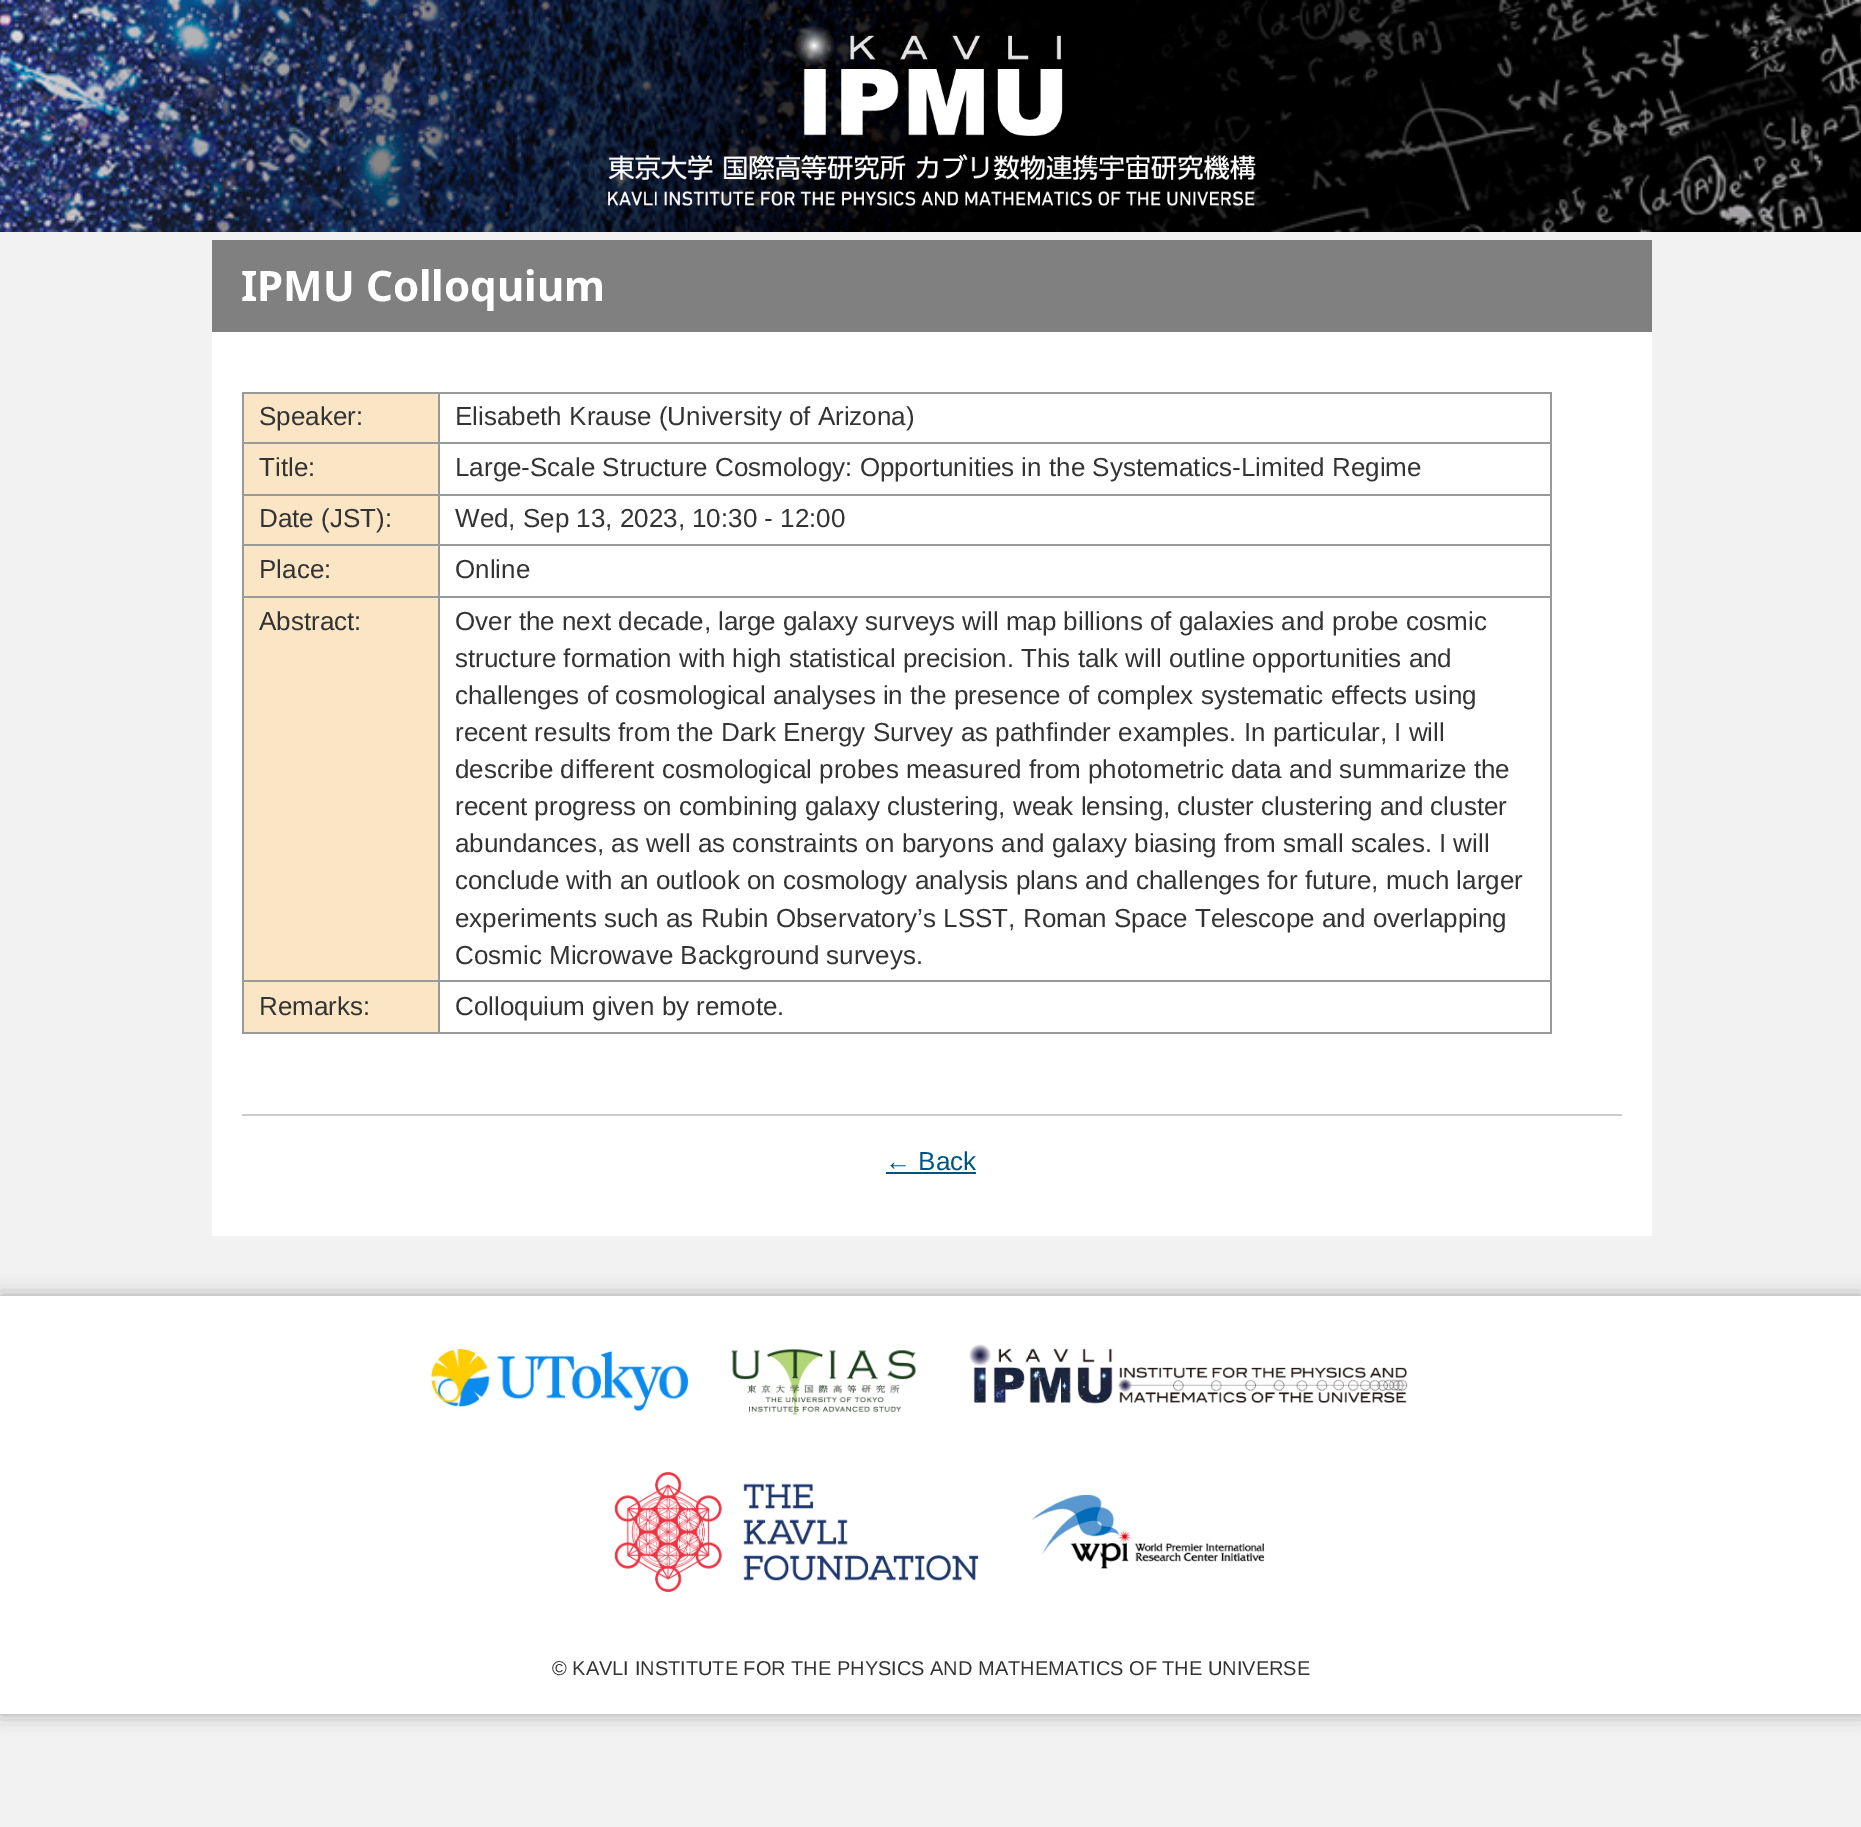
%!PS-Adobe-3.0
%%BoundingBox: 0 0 1861 1827
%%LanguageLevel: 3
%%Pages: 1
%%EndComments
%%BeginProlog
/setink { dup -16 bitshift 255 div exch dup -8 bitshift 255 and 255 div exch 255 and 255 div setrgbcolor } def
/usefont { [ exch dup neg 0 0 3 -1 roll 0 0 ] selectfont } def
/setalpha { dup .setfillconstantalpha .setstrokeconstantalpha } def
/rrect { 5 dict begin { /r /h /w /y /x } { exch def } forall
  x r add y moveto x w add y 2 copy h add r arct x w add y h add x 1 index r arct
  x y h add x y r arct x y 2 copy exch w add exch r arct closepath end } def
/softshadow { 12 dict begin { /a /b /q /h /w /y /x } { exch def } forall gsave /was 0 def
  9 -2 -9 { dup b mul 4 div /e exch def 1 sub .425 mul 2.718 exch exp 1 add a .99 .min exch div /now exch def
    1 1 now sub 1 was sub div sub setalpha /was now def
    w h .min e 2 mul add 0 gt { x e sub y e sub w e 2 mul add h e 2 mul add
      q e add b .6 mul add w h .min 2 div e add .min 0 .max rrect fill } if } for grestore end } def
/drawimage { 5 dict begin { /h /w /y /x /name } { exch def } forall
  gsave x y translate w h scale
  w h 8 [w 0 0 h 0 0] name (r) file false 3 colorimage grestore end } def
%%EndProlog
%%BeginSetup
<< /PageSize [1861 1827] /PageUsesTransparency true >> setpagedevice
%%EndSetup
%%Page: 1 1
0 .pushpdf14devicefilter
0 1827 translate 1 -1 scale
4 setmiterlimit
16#F2F2F2 setink
0 0 1861 1827 rectfill
(img1.raw) 0 0 1861 232 drawimage
(img2.raw) 608 26 648 180 drawimage
16#FFFFFF setink
212 332 1440 904 rectfill
16#808080 setink
212 240 1440 92 rectfill
/NotoSans-Bold 42 usefont
16#FFFFFF setink
241 301 moveto (IPMU Colloquium) show
[
    [244 394 194 48 16#FAE5C5]
    [438 392 1114 2 16#999999]
    [438 442 1114 2 16#999999]
    [438 494 1114 2 16#999999]
    [438 544 1114 2 16#999999]
    [438 596 1114 2 16#999999]
    [438 980 1114 2 16#999999]
    [1550 980 2 54 16#999999]
    [438 1032 1114 2 16#999999]
    [438 980 2 54 16#999999]
    [242 980 198 2 16#999999]
    [438 596 2 386 16#999999]
    [242 596 198 2 16#999999]
    [438 544 2 54 16#999999]
    [242 544 198 2 16#999999]
    [438 494 2 52 16#999999]
    [242 494 198 2 16#999999]
    [438 442 2 54 16#999999]
    [242 442 198 2 16#999999]
    [438 392 2 52 16#999999]
    [242 392 198 2 16#999999]
    [242 1032 198 2 16#999999]
    [242 980 2 54 16#999999]
    [242 596 2 386 16#999999]
    [242 544 2 54 16#999999]
    [242 494 2 52 16#999999]
    [242 442 2 54 16#999999]
    [242 392 2 52 16#999999]
] { aload pop setink rectfill } forall
/LiberationSans-Regular 26 usefont
16#333333 setink
259 425 moveto (Speaker:) show
[
    [1550 596 2 386 16#999999]
    [1550 544 2 54 16#999999]
    [1550 494 2 52 16#999999]
    [1550 442 2 54 16#999999]
    [1550 392 2 52 16#999999]
] { aload pop setink rectfill } forall
16#333333 setink
455 425 moveto (Elisabeth Krause \(University of Arizona\)) show
16#FAE5C5 setink
244 444 194 50 rectfill
16#333333 setink
259 476 moveto (Title:) show
455 476 moveto (Large-Scale Structure Cosmology: Opportunities in the Systematics-Limited Regime) show
16#FAE5C5 setink
244 496 194 48 rectfill
16#333333 setink
259 527 moveto (Date \(JST\):) show
455 527 moveto (Wed, Sep 13, 2023, 10:30 - 12:00) show
16#FAE5C5 setink
244 546 194 50 rectfill
16#333333 setink
259 578 moveto (Place:) show
455 578 moveto (Online) show
16#FAE5C5 setink
244 598 194 382 rectfill
16#333333 setink
[
    [(Abstract:) 259 630]
    [(Over the next decade, large galaxy surveys will map billions of galaxies and probe cosmic) 455 630]
    [(structure formation with high statistical precision. This talk will outline opportunities and) 455 667]
    [(challenges of cosmological analyses in the presence of complex systematic effects using) 455 704]
    [(recent results from the Dark Energy Survey as pathfinder examples. In particular, I will) 455 741]
    [(describe different cosmological probes measured from photometric data and summarize the) 455 778]
    [(recent progress on combining galaxy clustering, weak lensing, cluster clustering and cluster) 455 815]
    [(abundances, as well as constraints on baryons and galaxy biasing from small scales. I will) 455 852]
    [(conclude with an outlook on cosmology analysis plans and challenges for future, much larger) 455 889]
    [(experiments such as Rubin Observatory’s LSST, Roman Space Telescope and overlapping) 455 927]
    [(Cosmic Microwave Background surveys.) 455 964]
] { aload pop moveto show } forall
16#FAE5C5 setink
244 982 194 50 rectfill
16#333333 setink
259 1015 moveto (Remarks:) show
455 1015 moveto (Colloquium given by remote.) show
16#CCCCCC setink
242 1114 1380 2 rectfill
16#005580 setink
885 1170 moveto (← Back) show
886 1172 90 2 rectfill
16#000000 setink
0 1296 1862 418 0 10 0.3 softshadow
16#FFFFFF setink
0 1296 1861 418 rectfill
(img3.raw) 430 1349 259 64 drawimage
(img4.raw) 731 1349 185 66 drawimage
(img5.raw) 969 1344 439 60 drawimage
(img6.raw) 614 1472 365 120 drawimage
(img7.raw) 1032 1494 233 75 drawimage
/LiberationSans-Regular 20 usefont
16#333333 setink
552 1675 moveto (© KAVLI INSTITUTE FOR THE PHYSICS AND MATHEMATICS OF THE UNIVERSE) show
.poppdf14devicefilter showpage
%%EOF
